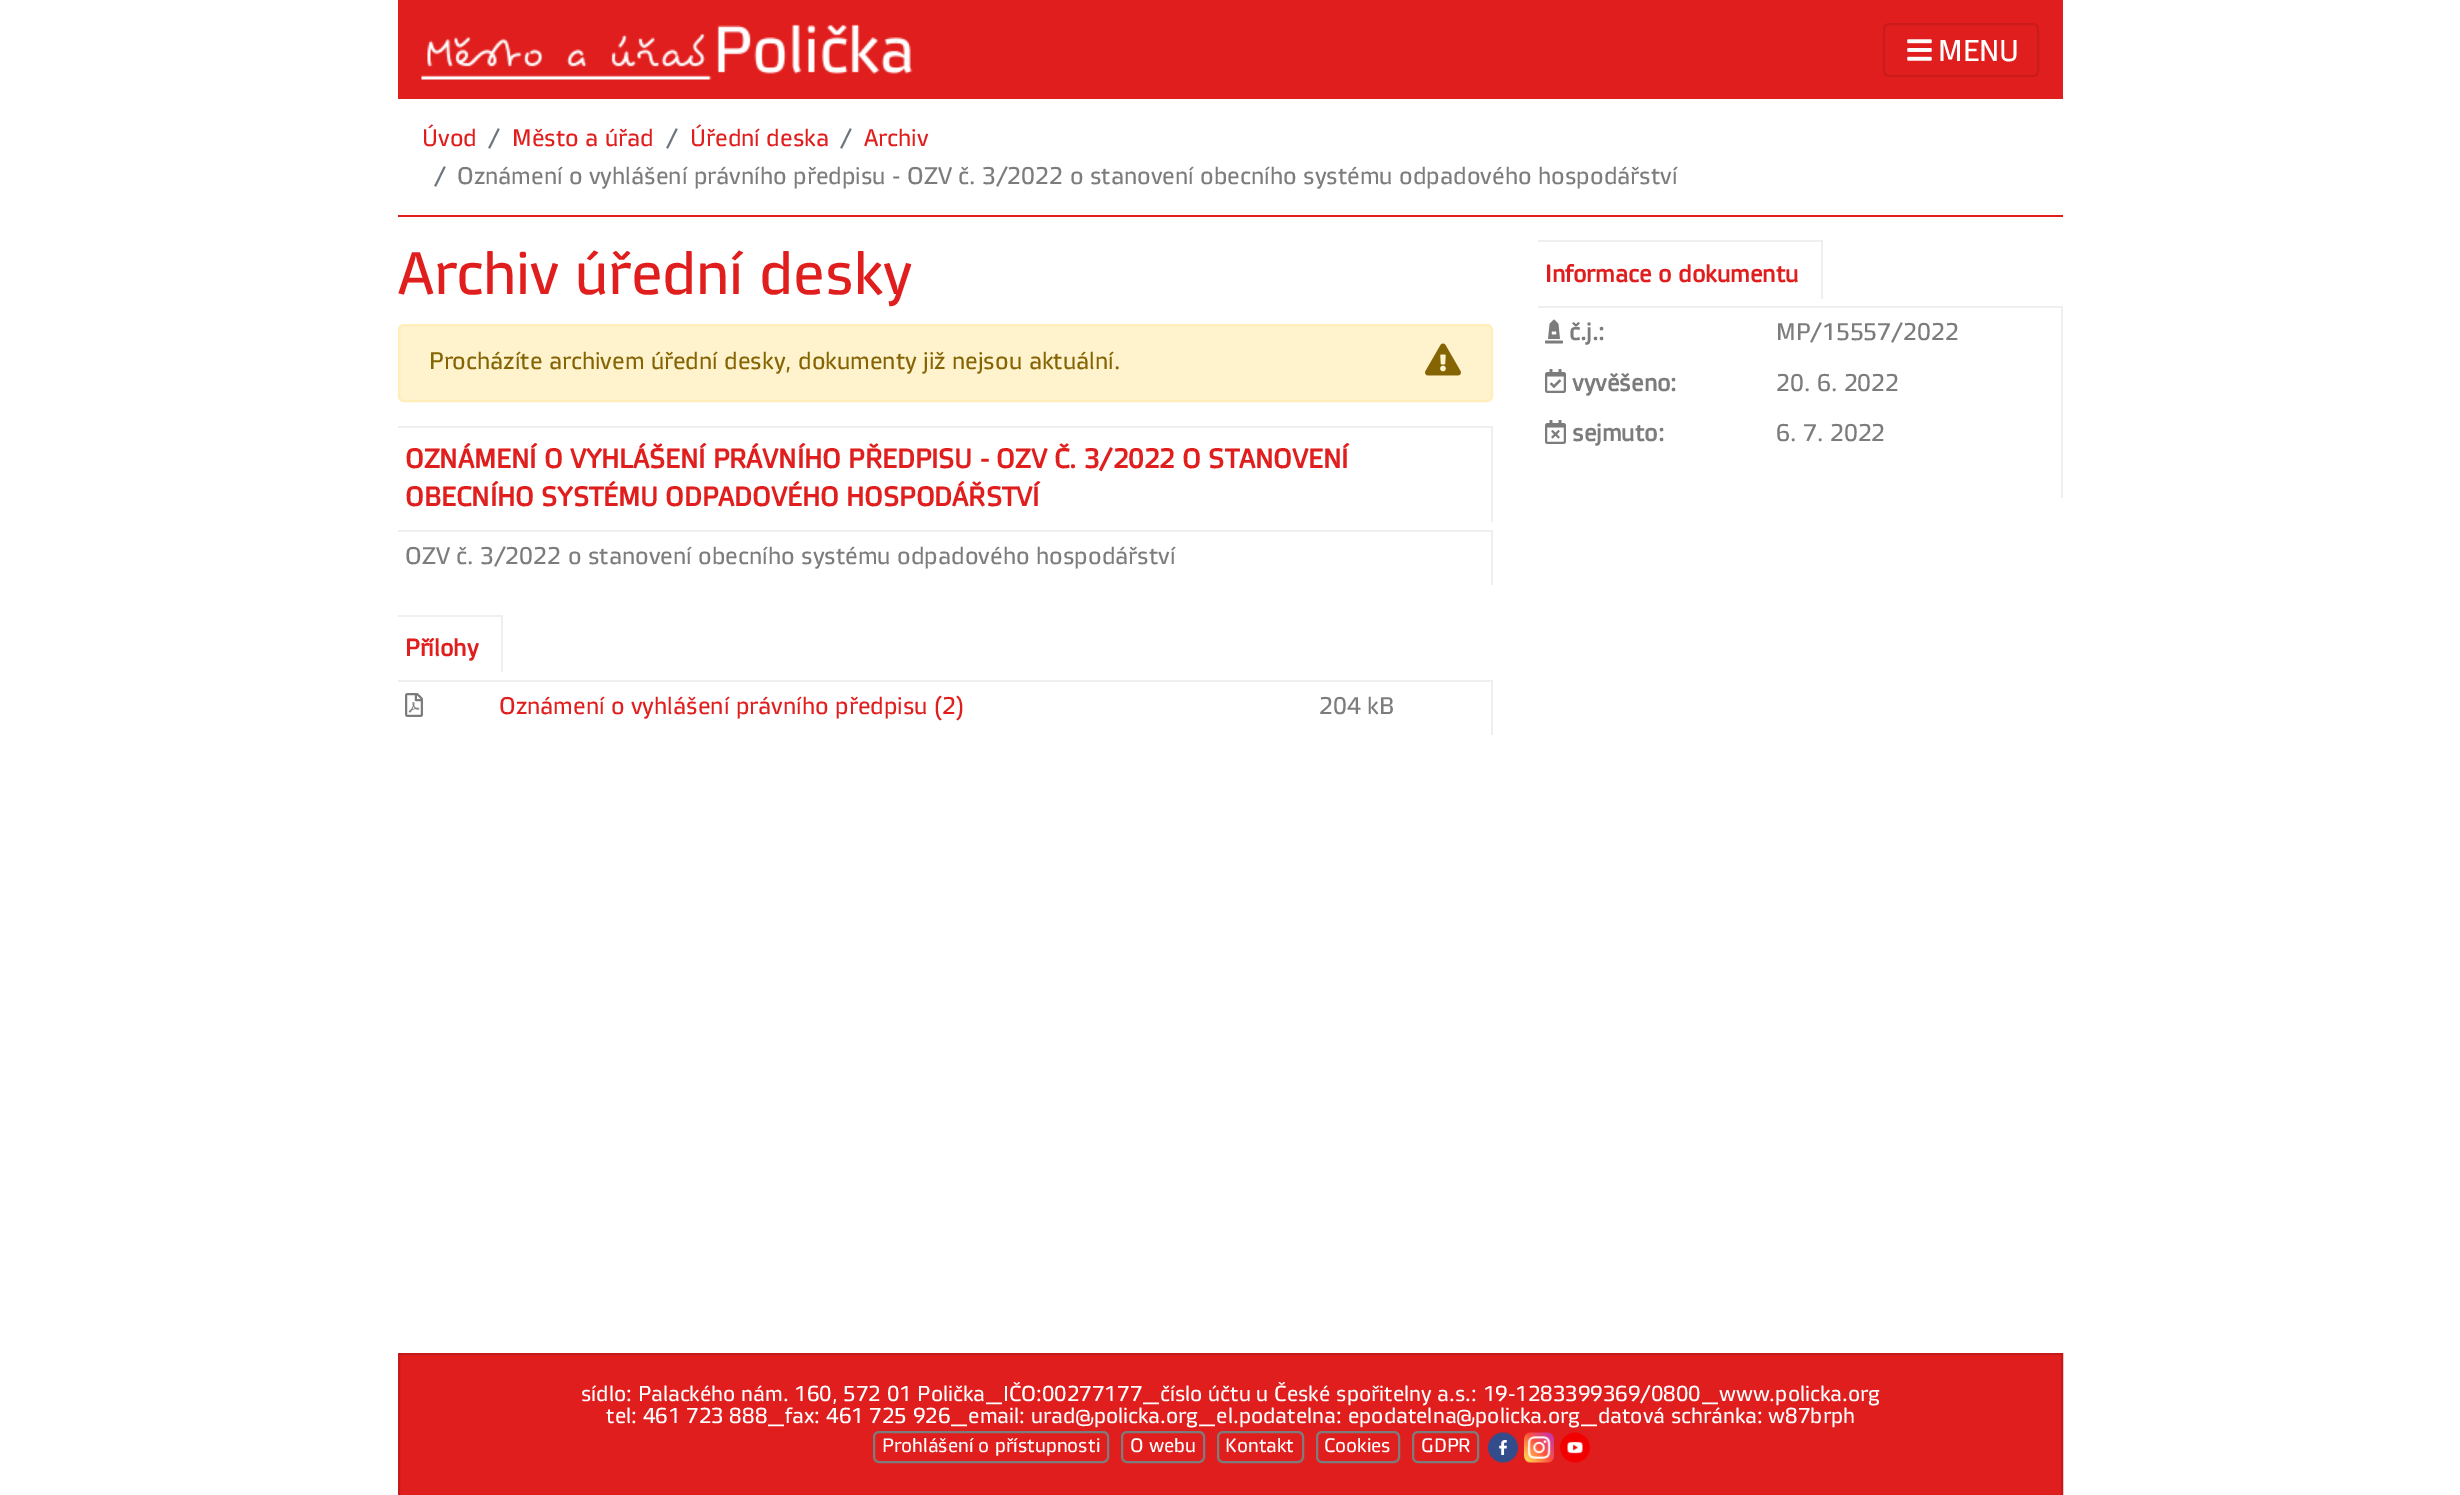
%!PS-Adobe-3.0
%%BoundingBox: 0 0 2460 1495
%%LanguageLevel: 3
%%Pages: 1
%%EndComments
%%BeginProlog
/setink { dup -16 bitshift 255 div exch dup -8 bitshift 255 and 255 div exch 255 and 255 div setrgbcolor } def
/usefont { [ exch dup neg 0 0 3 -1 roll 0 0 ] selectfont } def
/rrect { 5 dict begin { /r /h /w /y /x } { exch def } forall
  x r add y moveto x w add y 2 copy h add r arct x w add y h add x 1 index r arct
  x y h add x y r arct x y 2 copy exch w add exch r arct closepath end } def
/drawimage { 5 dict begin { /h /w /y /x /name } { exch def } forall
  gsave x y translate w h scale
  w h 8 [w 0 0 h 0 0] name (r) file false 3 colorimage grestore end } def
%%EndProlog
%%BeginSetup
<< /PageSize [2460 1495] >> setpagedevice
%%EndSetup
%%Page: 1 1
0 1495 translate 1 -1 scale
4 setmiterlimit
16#FFFFFF setink
0 0 2460 1495 rectfill
16#E11E1E setink
398 0 1665 99 rectfill
(img1.raw) 421 24 492 56 drawimage
16#CB1B1B setink
2 setlinewidth
1884 24 154 52 5 rrect stroke
(img2.raw) 1907 39 25 22 drawimage
/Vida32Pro-Regular 30 usefont
16#FFFFFF setink
1938 61 moveto (MENU) show
16#E11E1E setink
398 215 1665 2 rectfill
/Vida32Pro-Regular 24 usefont
422 146 moveto (Úvod) show
16#6C757D setink
488 146 moveto (/) show
16#E11E1E setink
512 146 moveto (Město a úřad) show
16#6C757D setink
666 146 moveto (/) show
16#E11E1E setink
690 146 moveto (Úřední deska) show
16#6C757D setink
840 146 moveto (/) show
16#E11E1E setink
864 146 moveto (Archiv) show
16#6C757D setink
434 184 moveto (/) show
16#7C7C7C setink
457 184 moveto (Oznámení o vyhlášení právního předpisu - OZV č. 3/2022 o stanovení obecního systému odpadového hospodářství) show
/Vida32Pro-Regular 60 usefont
16#E11E1E setink
398 294 moveto (Archiv úřední desky) show
16#FFF3CD setink
399 325 1093 76 5 rrect gsave fill grestore
16#FFEEBA setink
stroke
/Vida32Pro-Regular 24 usefont
16#856404 setink
429 369 moveto (Procházíte archivem úřední desky, dokumenty již nejsou aktuální.) show
(img3.raw) 1425 343 36 33 drawimage
16#F0EFEF setink
398 426 1095 2 rectfill
1491 426 2 96 rectfill
/Vida32Pro-Bold 27 usefont
16#E11E1E setink
405 468 moveto (OZNÁMENÍ O VYHLÁŠENÍ PRÁVNÍHO PŘEDPISU - OZV Č. 3/2022 O STANOVENÍ) show
405 506 moveto (OBECNÍHO SYSTÉMU ODPADOVÉHO HOSPODÁŘSTVÍ) show
16#F0EFEF setink
398 530 1095 2 rectfill
1491 530 2 55 rectfill
/Vida32Pro-Regular 24 usefont
16#7C7C7C setink
405 564 moveto (OZV č. 3/2022 o stanovení obecního systému odpadového hospodářství) show
16#F0EFEF setink
398 615 105 2 rectfill
501 615 2 57 rectfill
/Vida32Pro-Bold 24 usefont
16#E11E1E setink
405 656 moveto (Přílohy) show
16#F0EFEF setink
398 680 1095 2 rectfill
1491 680 2 55 rectfill
(img4.raw) 405 693 18 24 drawimage
/Vida32Pro-Regular 24 usefont
16#E11E1E setink
499 714 moveto (Oznámení o vyhlášení právního předpisu \(2\)) show
16#7C7C7C setink
1319 714 moveto (204 kB) show
16#F0EFEF setink
1538 240 285 2 rectfill
1821 240 2 59 rectfill
/Vida32Pro-Bold 24 usefont
16#E11E1E setink
1545 282 moveto (Informace o dokumentu) show
16#F0EFEF setink
1538 306 525 2 rectfill
2061 306 2 192 rectfill
(img5.raw) 1545 319 18 25 drawimage
16#7C7C7C setink
1569 340 moveto (č.j.:) show
/Vida32Pro-Regular 24 usefont
1776 340 moveto (MP/15557/2022) show
(img6.raw) 1545 369 21 24 drawimage
/Vida32Pro-Bold 24 usefont
1572 391 moveto (vyvěšeno:) show
/Vida32Pro-Regular 24 usefont
1776 391 moveto (20. 6. 2022) show
(img7.raw) 1545 420 21 24 drawimage
/Vida32Pro-Bold 24 usefont
1572 441 moveto (sejmuto:) show
/Vida32Pro-Regular 24 usefont
1776 441 moveto (6. 7. 2022) show
16#E11E1E setink
399 1354 moveto 2062 1354 lineto 2062 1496 lineto 399 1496 lineto closepath gsave fill grestore
16#C51A1A setink
stroke
/Vida32Pro-Regular 21.6 usefont
16#FFFFFF setink
581 1401 moveto (sídlo: Palackého nám. 160, 572 01 Polička_IČO:00277177_číslo účtu u České spořitelny a.s.: 19-1283399369/0800_www.policka.org) show
606 1423 moveto (tel: 461 723 888_fax: 461 725 926_email: urad@policka.org_el.podatelna: epodatelna@policka.org_datová schránka: w87brph) show
16#7C7C7C setink
874 1432 234 30 5 rrect stroke
/Vida32Pro-Regular 19.5 usefont
16#FFFFFF setink
882 1452 moveto (Prohlášení o přístupnosti) show
16#7C7C7C setink
1122 1432 82 30 5 rrect stroke
16#FFFFFF setink
1130 1452 moveto (O webu) show
16#7C7C7C setink
1218 1432 85 30 5 rrect stroke
16#FFFFFF setink
1225 1452 moveto (Kontakt) show
16#7C7C7C setink
1317 1432 82 30 5 rrect stroke
16#FFFFFF setink
1324 1452 moveto (Cookies) show
16#7C7C7C setink
1413 1432 65 30 5 rrect stroke
16#FFFFFF setink
1421 1452 moveto (GDPR) show
(img8.raw) 1488 1432 30 31 drawimage
(img9.raw) 1524 1432 30 31 drawimage
(img10.raw) 1560 1432 30 31 drawimage
showpage
%%EOF
